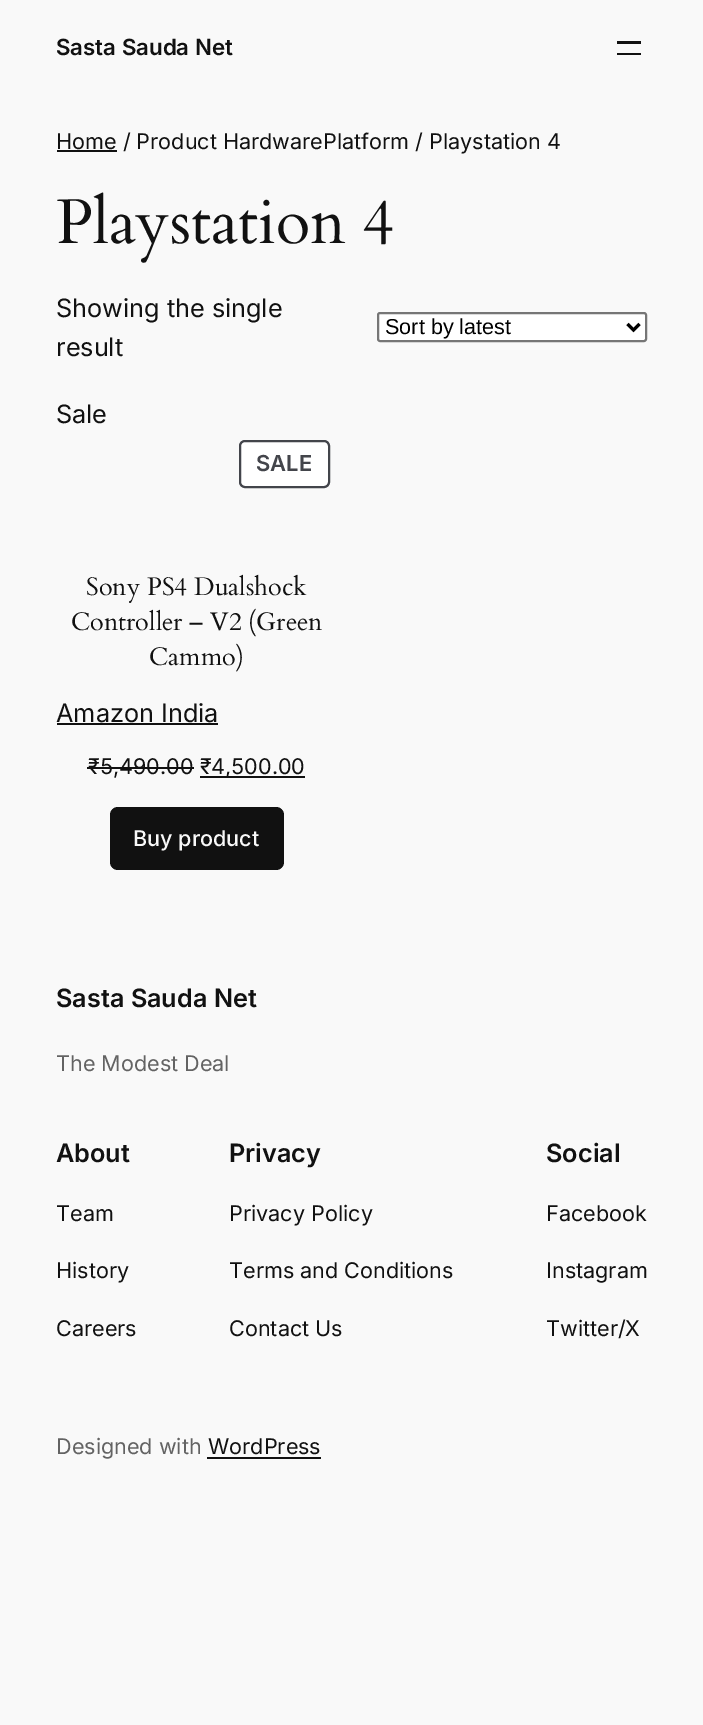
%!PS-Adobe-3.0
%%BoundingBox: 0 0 703 1725
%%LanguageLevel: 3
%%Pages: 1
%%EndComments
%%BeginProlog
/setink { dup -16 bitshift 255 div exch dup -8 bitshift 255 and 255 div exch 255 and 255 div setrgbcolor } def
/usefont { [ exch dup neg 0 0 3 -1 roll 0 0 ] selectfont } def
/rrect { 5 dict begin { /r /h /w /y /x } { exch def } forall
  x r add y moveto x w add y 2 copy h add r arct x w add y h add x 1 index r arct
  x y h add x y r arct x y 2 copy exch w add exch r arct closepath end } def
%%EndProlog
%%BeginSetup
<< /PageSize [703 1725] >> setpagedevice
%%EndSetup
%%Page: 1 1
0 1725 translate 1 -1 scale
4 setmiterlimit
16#F9F9F9 setink
0 0 703 1725 rectfill
/Inter-SemiBold 22.25 usefont
16#111111 setink
56 55 moveto (Sasta Sauda Net) show
[
    [617 41 24 3 16#111111]
    [617 53 24 2 16#111111]
    [57 150 60 2 16#111111]
] { aload pop setink rectfill } forall
/Inter-Regular 21.6 usefont
56 149 moveto (Home / Product HardwarePlatform / Playstation 4) show
/Cardo-Regular 63 usefont
56 243 moveto (Playstation 4) show
/Inter-Regular 25.25 usefont
56 317 moveto (Showing the single) show
56 356 moveto (result) show
16#FFFFFF setink
378 313 268 28 2 rrect gsave fill grestore
16#767676 setink
2 setlinewidth
stroke
16#000000 setink
3 setlinewidth
627.5 324 moveto 633.5 330 lineto 639.5 324 lineto stroke
/LiberationSans-Regular 21.6 usefont
385 334 moveto (Sort by latest) show
/Inter-Regular 25.25 usefont
16#111111 setink
56 423 moveto (Sale) show
16#FFFFFF setink
240 441 89 46 5 rrect gsave fill grestore
16#43454B setink
2 setlinewidth
stroke
/Inter-SemiBold 22 usefont
256 471 moveto (SALE) show
/Cardo-Regular 25.25 usefont
16#111111 setink
[
    [(Sony PS4 Dualshock) 86 595]
    [(Controller – V2 \(Green) 71 630]
    [(Cammo\)) 149 665]
] { aload pop moveto show } forall
/Inter-Regular 25.25 usefont
56 722 moveto (Amazon India) show
57 723 161 2 rectfill
/Inter-Regular 21.6 usefont
88 774 moveto (₹5,490.00 ₹) show
87 767 107 2 rectfill
200 776 105 2 rectfill
211 774 moveto (4,500.00) show
110 807 174 63 8 rrect fill
/Inter-Medium 21.6 usefont
16#F9F9F9 setink
133 846 moveto (Buy product) show
/Inter-SemiBold 25.25 usefont
16#111111 setink
56 1007 moveto (Sasta Sauda Net) show
/Inter-Regular 21.6 usefont
16#636363 setink
56 1071 moveto (The Modest Deal) show
/Inter-SemiBold 25.25 usefont
16#111111 setink
56 1162 moveto (About) show
/Inter-Regular 21.6 usefont
[
    [(Team) 56 1221]
    [(History) 56 1278]
    [(Careers) 56 1336]
] { aload pop moveto show } forall
/Inter-SemiBold 25.25 usefont
229 1162 moveto (Privacy) show
/Inter-Regular 21.6 usefont
[
    [(Privacy Policy) 229 1221]
    [(Terms and Conditions) 229 1278]
    [(Contact Us) 229 1336]
] { aload pop moveto show } forall
/Inter-SemiBold 25.25 usefont
546 1162 moveto (Social) show
/Inter-Regular 21.6 usefont
[
    [(Facebook) 546 1221]
    [(Instagram) 546 1278]
    [(Twitter/X) 546 1336]
] { aload pop moveto show } forall
16#636363 setink
56 1454 moveto (Designed with) show
16#111111 setink
208 1454 moveto (WordPress) show
207 1457 114 2 rectfill
showpage
%%EOF
